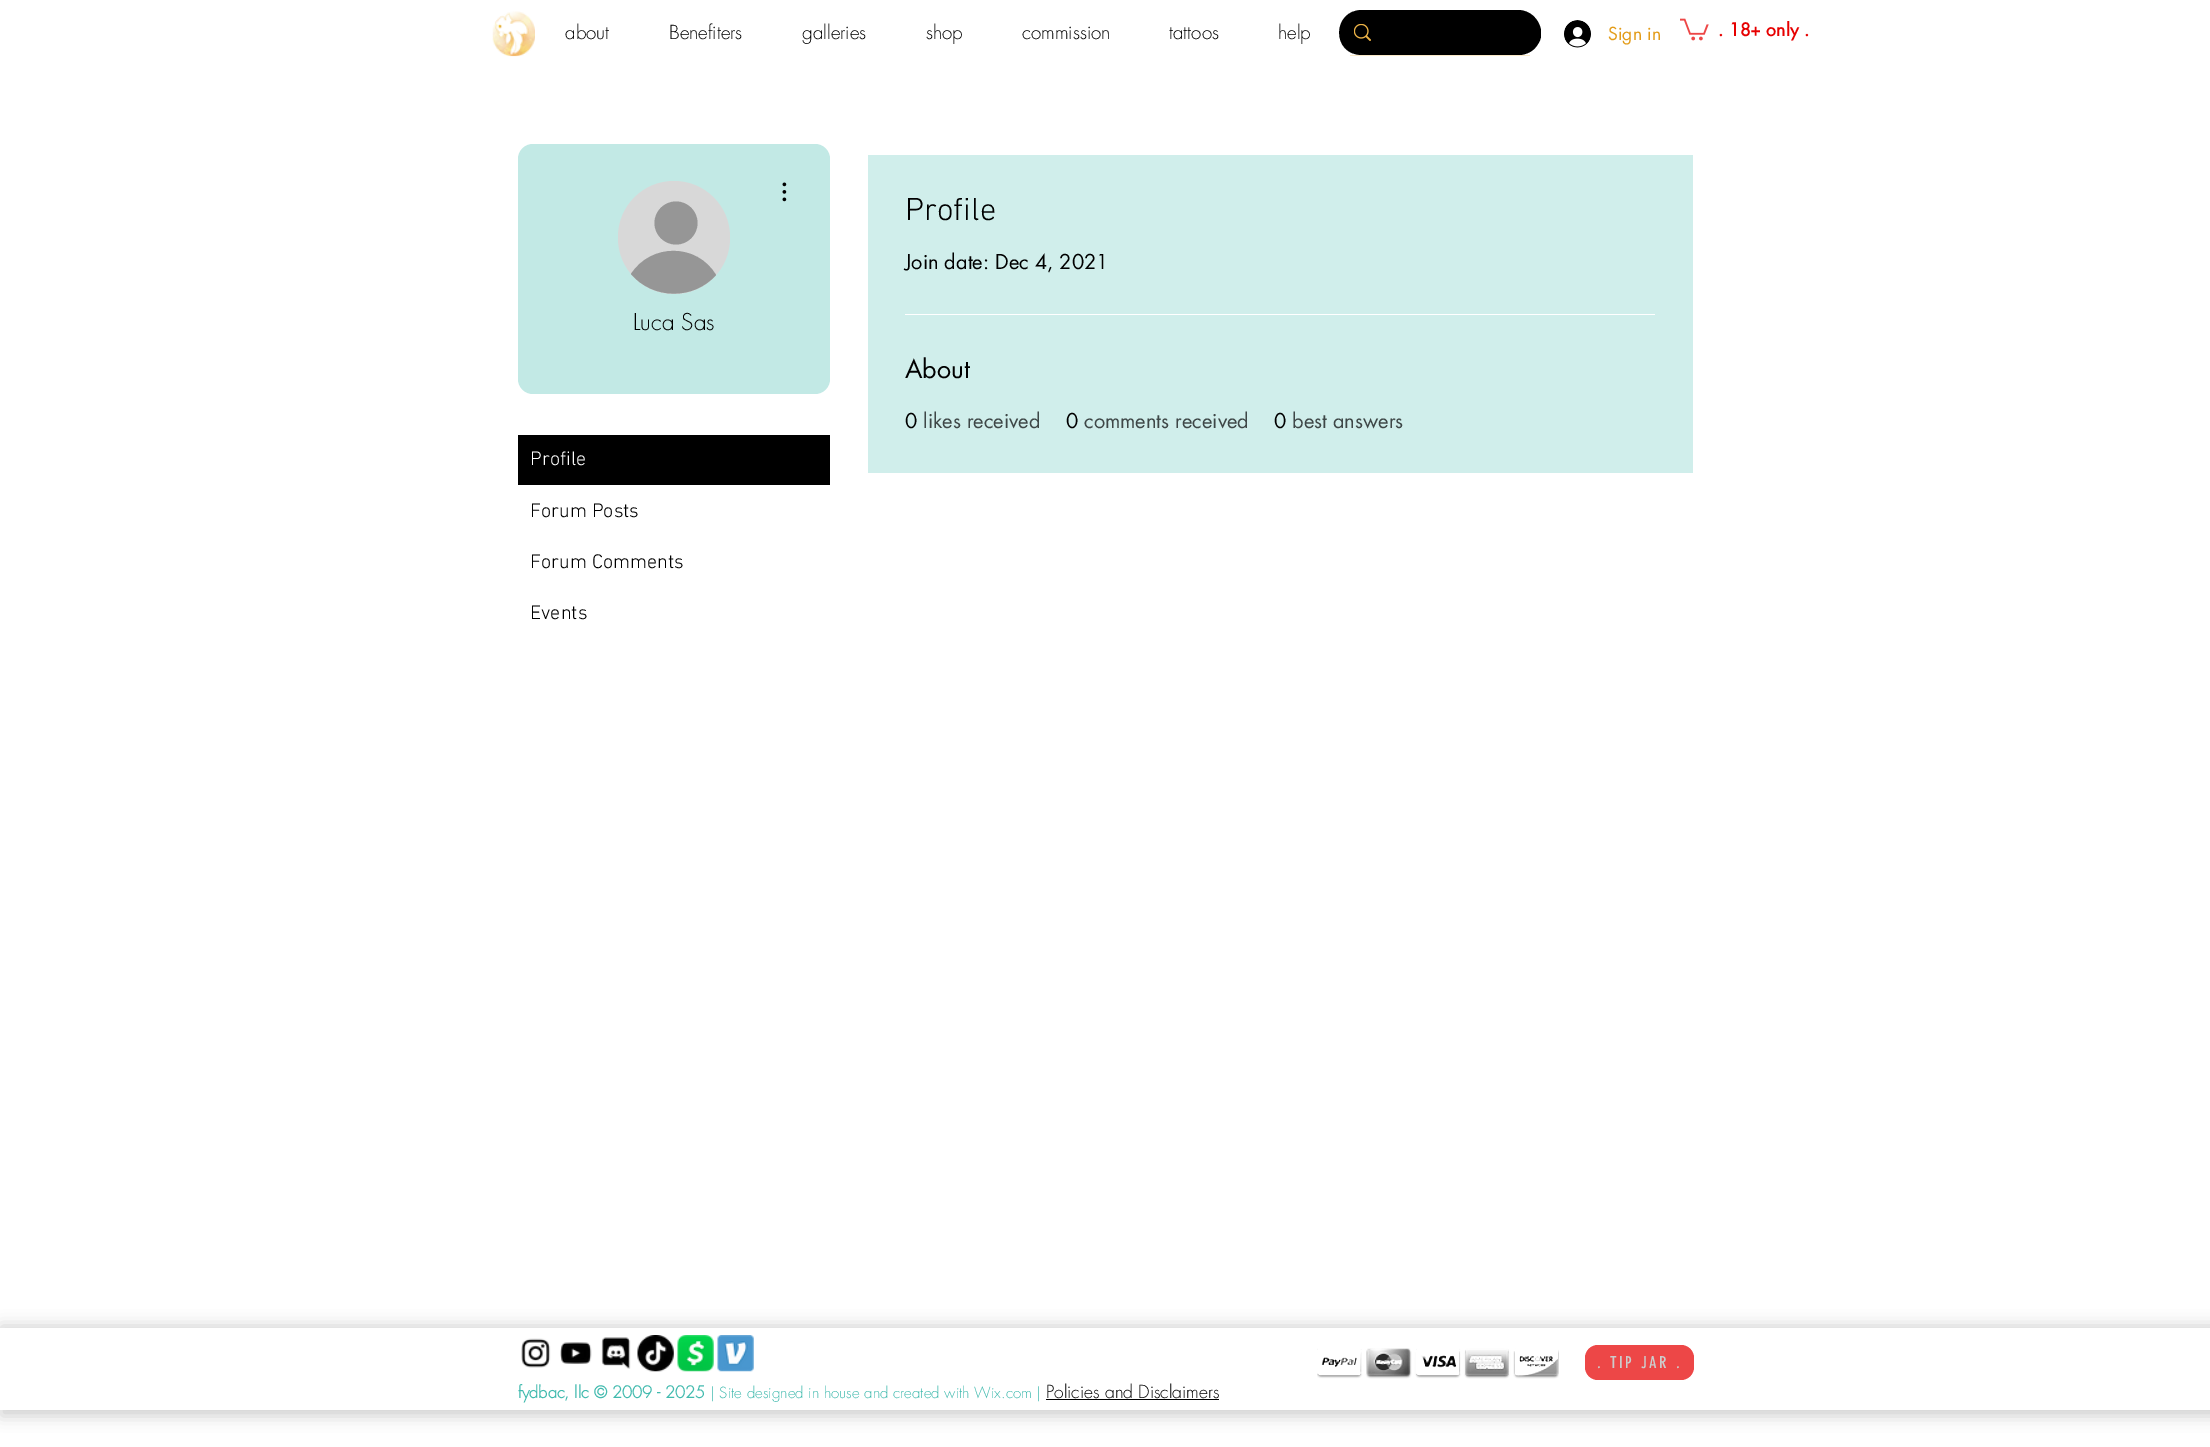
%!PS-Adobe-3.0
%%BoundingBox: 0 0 2210 1447
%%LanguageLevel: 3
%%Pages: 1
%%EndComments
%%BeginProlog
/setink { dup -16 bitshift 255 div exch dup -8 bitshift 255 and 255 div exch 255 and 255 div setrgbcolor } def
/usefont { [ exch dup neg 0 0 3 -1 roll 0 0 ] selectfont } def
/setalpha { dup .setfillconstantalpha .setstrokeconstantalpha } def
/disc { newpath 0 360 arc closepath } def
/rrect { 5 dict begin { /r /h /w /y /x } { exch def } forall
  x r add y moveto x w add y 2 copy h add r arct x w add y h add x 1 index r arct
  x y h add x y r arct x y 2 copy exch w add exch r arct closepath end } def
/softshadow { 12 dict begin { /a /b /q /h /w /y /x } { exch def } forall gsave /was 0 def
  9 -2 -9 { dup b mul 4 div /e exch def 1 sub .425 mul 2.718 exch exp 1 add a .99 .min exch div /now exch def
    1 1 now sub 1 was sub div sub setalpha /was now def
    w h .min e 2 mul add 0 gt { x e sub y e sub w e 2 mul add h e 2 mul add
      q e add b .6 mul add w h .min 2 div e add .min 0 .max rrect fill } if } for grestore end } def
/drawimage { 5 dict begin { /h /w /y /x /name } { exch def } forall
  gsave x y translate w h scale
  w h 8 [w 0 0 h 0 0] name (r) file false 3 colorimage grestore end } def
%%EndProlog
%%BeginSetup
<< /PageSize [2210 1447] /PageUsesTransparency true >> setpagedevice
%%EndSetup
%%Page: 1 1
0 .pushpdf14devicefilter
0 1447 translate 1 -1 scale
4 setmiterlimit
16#FFFFFF setink
0 0 2210 1447 rectfill
(img1.raw) 492 11 43 46 drawimage
/futura-Light 18.75 usefont
16#000000 setink
[
    [(about) 565 39]
    [(Benefiters) 669 39]
    [(galleries) 802 39]
    [(shop) 926 39]
    [(commission) 1022 39]
    [(tattoos) 1169 39]
    [(help) 1278 39]
] { aload pop moveto show } forall
16#FAE9C8 setink
1350 55 180 1 rectfill
gsave
1339 10 202 45 rectclip
16#000000 setink
1362 10 moveto 1332 10 1331 55 1362 55 curveto 1492 55 lineto 1507 55 1529 60 1538 44 curveto 1541 40 1542 34 1541 30 curveto 1539 19 1530 10 1518 10 curveto closepath fill
grestore
(img2.raw) 1354 24 17 17 drawimage
(img3.raw) 1564 20 27 28 drawimage
/futura-Regular 17.5 usefont
16#E39C19 setink
1608 40 moveto (Sign in) show
(img4.raw) 1680 18 29 23 drawimage
/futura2-Bold 17.5 usefont
16#E60000 setink
1718 36 moveto (. 18+ only .) show
16#C2E9E5 setink
518 144 312 250 15 rrect fill
16#D8D8D8 setink
618 181 112 113 56 rrect fill
16#969696 setink
676 223 21.5 disc fill
716 275 moveto 694 300 653 300 631 274 curveto 651 243 697 243 716 275 curveto closepath fill
(img5.raw) 782 182 5 20 drawimage
/futura-Light 22.5 usefont
16#000000 setink
633 330 moveto (Luca Sas) show
518 435 312 50 rectfill
/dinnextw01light-Light 20 usefont
16#FFFFFF setink
530 465 moveto (Profile) show
16#000000 setink
[
    [(Forum Posts) 530 517]
    [(Forum Comments) 530 568]
    [(Events) 530 619]
] { aload pop moveto show } forall
16#D0EEEB setink
868 155 825 318 rectfill
/dinnextw01light-Light 32.5 usefont
16#000000 setink
905 220 moveto (Profile) show
/futura-Regular 20 usefont
905 269 moveto (Join date: Dec 4, 2021) show
16#FFFFFF setink
905 314 750 1 rectfill
/futura-Regular 25 usefont
16#000000 setink
905 378 moveto (About) show
/futura-Regular 20 usefont
905 428 moveto (0) show
16#3E4747 setink
923 428 moveto (likes received) show
16#000000 setink
1066 428 moveto (0) show
16#3E4747 setink
1084 428 moveto (comments received) show
16#000000 setink
1274 428 moveto (0) show
16#3E4747 setink
1292 428 moveto (best answers) show
gsave
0 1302 moveto 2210 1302 lineto 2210 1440 lineto 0 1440 lineto closepath 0 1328 moveto 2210 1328 lineto 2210 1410 lineto 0 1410 lineto closepath eoclip newpath
16#000000 setink
1 1326 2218 90 0 7.5 0.19 softshadow
grestore
(img6.raw) 521 1338 30 30 drawimage
(img7.raw) 560 1342 32 22 drawimage
(img8.raw) 601 1337 30 32 drawimage
(img9.raw) 637 1335 37 37 drawimage
(img10.raw) 677 1335 37 37 drawimage
(img11.raw) 717 1335 37 37 drawimage
(img12.raw) 1317 1348 242 31 drawimage
16#ED4747 setink
1585 1345 109 35 13 rrect fill
/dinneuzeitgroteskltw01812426-Regular 16.25 usefont
16#CCCCCC setink
1597 1368 moveto 2.5 0 (. TIP JAR .) ashow
/futura-Bold 16.25 usefont
16#41BAAE setink
518 1398 moveto (fydbac, llc © 2009 - 2025) show
/futura-Light 15 usefont
710 1398 moveto (| Site designed in house and created with Wix.com |) show
/futura-Light 17.5 usefont
16#000000 setink
1046 1398 moveto (Policies and Disclaimers) show
1046 1399 173 1 rectfill
.poppdf14devicefilter showpage
%%EOF
